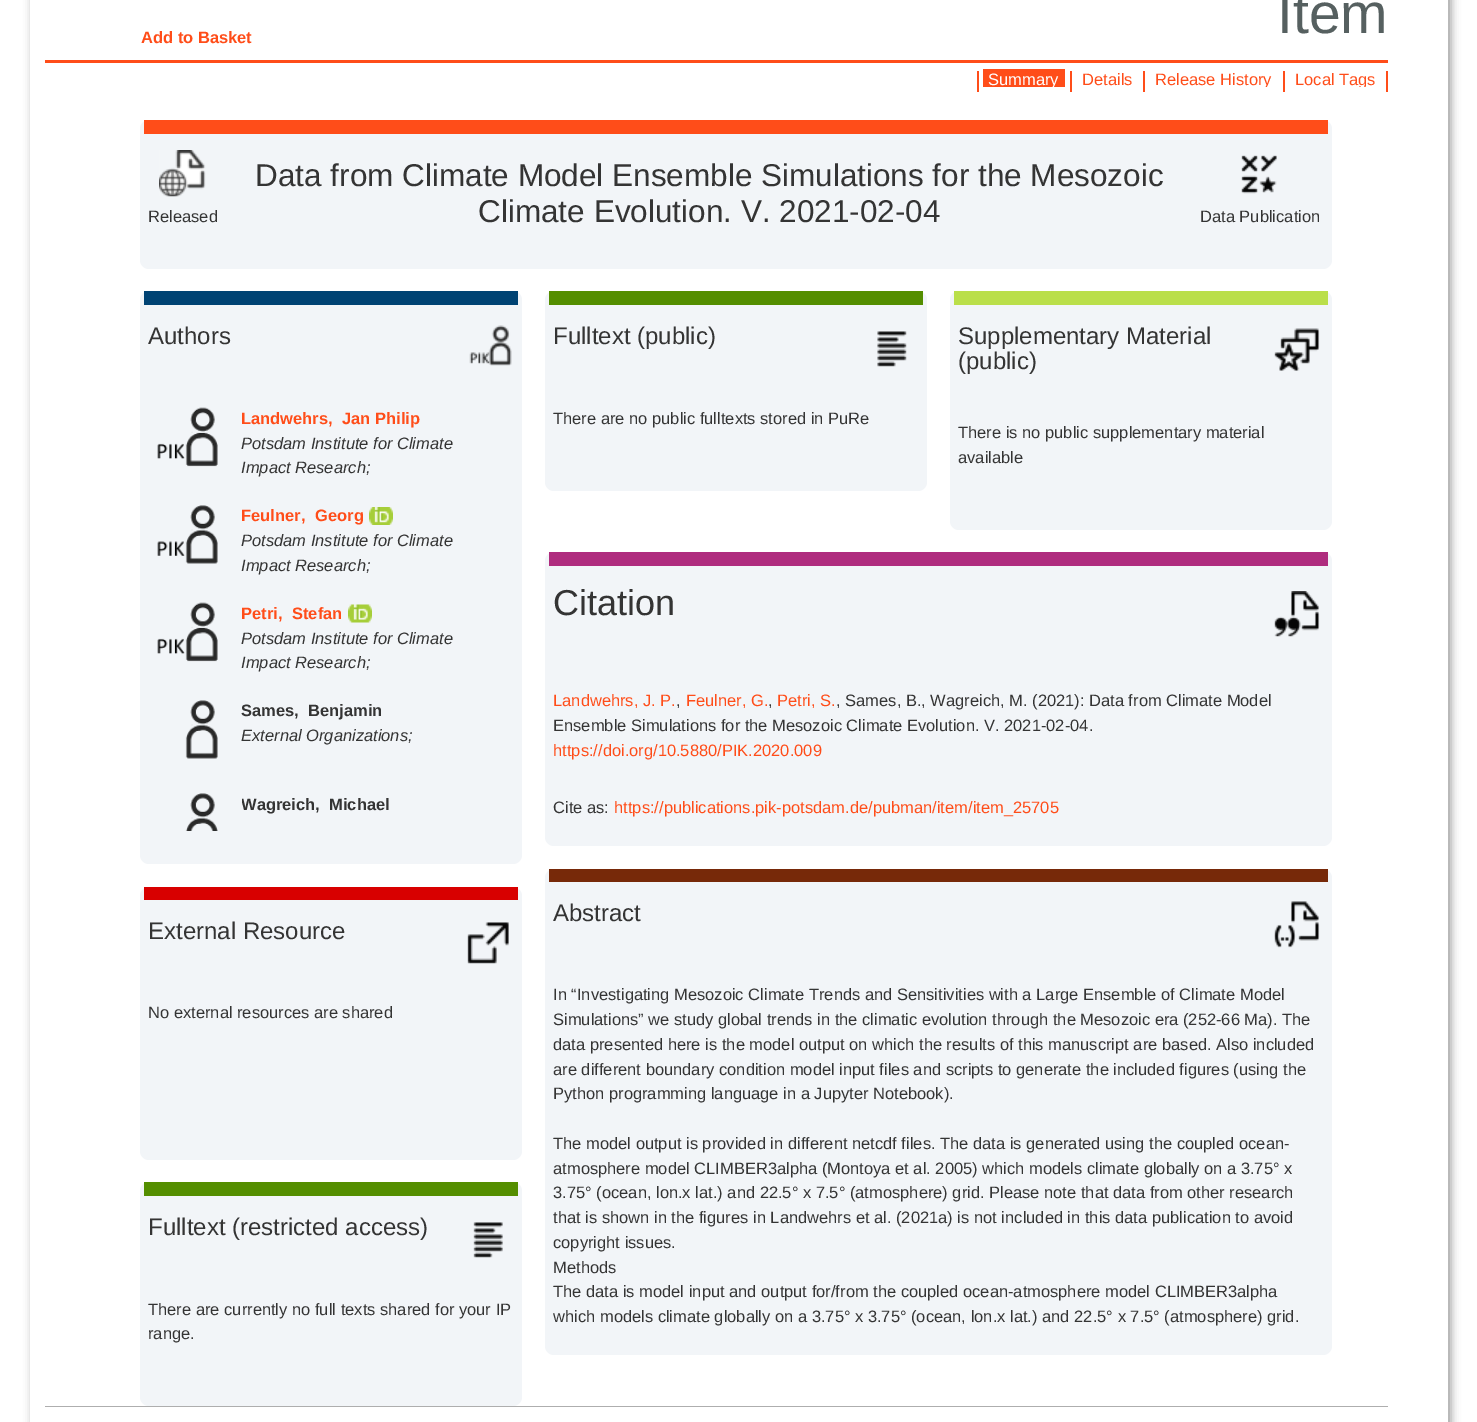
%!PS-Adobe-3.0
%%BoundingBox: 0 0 1477 1422
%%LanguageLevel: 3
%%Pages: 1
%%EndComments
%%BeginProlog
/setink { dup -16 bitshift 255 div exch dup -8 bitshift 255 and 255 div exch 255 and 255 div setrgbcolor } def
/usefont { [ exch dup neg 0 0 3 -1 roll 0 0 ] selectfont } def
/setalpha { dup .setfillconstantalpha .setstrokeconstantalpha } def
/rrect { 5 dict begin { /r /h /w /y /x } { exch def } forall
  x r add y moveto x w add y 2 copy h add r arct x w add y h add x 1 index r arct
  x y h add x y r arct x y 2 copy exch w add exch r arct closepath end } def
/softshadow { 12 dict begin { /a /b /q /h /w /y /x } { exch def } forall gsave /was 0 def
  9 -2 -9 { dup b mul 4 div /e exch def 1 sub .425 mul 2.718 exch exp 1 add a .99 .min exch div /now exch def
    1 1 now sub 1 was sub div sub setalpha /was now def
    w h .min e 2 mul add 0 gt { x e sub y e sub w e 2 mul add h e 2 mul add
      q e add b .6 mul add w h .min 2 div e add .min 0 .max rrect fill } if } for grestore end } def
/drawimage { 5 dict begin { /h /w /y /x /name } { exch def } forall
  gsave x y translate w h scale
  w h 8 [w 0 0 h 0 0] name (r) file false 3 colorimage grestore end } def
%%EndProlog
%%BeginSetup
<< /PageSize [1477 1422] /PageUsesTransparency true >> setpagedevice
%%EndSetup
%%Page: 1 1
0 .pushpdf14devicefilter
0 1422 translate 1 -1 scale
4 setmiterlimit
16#FFFFFF setink
0 0 1477 1422 rectfill
16#999999 setink
33 -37 1418 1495 23 4.5 1 softshadow
16#FFFFFF setink
30 0 1418 1422 rectfill
/LiberationSans-Regular 57 usefont
16#566060 setink
1277 33 moveto (Item) show
/LiberationSans-Bold 16.5 usefont
16#FF4D19 setink
141 43 moveto (Add to Basket) show
[
    [45 60 1343 3 16#FF4D19]
    [45 1406 1343 1 16#AEAEAE]
    [977 71 2 21 16#FF4D19]
    [983 69 82 18 16#FF4D19]
] { aload pop setink rectfill } forall
gsave
983 69 82 18 rectclip
/LiberationSans-Regular 16.5 usefont
16#FFFFFF setink
988 85 moveto (Summary) show
grestore
1070 71 2 21 rectfill
/LiberationSans-Regular 16.5 usefont
1082 85 moveto (Details) show
1143 71 2 21 rectfill
gsave
1149 69 129 18 rectclip
1155 85 moveto (Release History) show
grestore
1283 71 2 21 rectfill
gsave
1289 69 93 18 rectclip
1295 85 moveto (Local Tags) show
grestore
1386 71 2 21 rectfill
16#F2F5F8 setink
140 120 1192 149 9 rrect fill
16#FF4D19 setink
144 120 1184 14 rectfill
(img1.raw) 159 150 47 47 drawimage
16#343434 setink
148 222 moveto (Released) show
/LiberationSans-Regular 31.5 usefont
255 186 moveto (Data from Climate Model Ensemble Simulations for the Mesozoic) show
478 222 moveto (Climate Evolution. V. 2021-02-04) show
(img2.raw) 1241 155 36 39 drawimage
/LiberationSans-Regular 16.5 usefont
1200 222 moveto (Data Publication) show
16#F2F5F8 setink
140 291 382 573 9 rrect fill
16#004373 setink
144 291 374 14 rectfill
/LiberationSans-Regular 24 usefont
16#343434 setink
148 344 moveto (Authors) show
(img3.raw) 469 325 43 41 drawimage
(img4.raw) 157 407 61 60 drawimage
/LiberationSans-Bold 16.5 usefont
16#FF4D19 setink
241 424 moveto (Landwehrs,) show
342 424 moveto (Jan Philip) show
/LiberationSans-Italic 16.5 usefont
16#343434 setink
241 449 moveto (Potsdam Institute for Climate) show
241 473 moveto (Impact Research;) show
(img5.raw) 157 505 61 59 drawimage
/LiberationSans-Bold 16.5 usefont
16#FF4D19 setink
241 521 moveto (Feulner,) show
315 521 moveto (Georg) show
(img6.raw) 369 507 24 18 drawimage
/LiberationSans-Italic 16.5 usefont
16#343434 setink
241 546 moveto (Potsdam Institute for Climate) show
241 571 moveto (Impact Research;) show
(img4.raw) 157 602 61 60 drawimage
/LiberationSans-Bold 16.5 usefont
16#FF4D19 setink
241 619 moveto (Petri,) show
292 619 moveto (Stefan) show
(img7.raw) 348 604 24 19 drawimage
/LiberationSans-Italic 16.5 usefont
16#343434 setink
241 644 moveto (Potsdam Institute for Climate) show
241 668 moveto (Impact Research;) show
(img8.raw) 185 700 33 59 drawimage
/LiberationSans-Bold 16.5 usefont
241 716 moveto (Sames,) show
308 716 moveto (Benjamin) show
/LiberationSans-Italic 16.5 usefont
241 741 moveto (External Organizations;) show
(img9.raw) 185 793 33 38 drawimage
gsave
242 792 238 39 rectclip
/LiberationSans-Bold 16.5 usefont
241 810 moveto (Wagreich,) show
grestore
/LiberationSans-Bold 16.5 usefont
329 810 moveto (Michael) show
16#F2F5F8 setink
140 887 382 273 9 rrect fill
16#D80000 setink
144 887 374 13 rectfill
/LiberationSans-Regular 24 usefont
16#343434 setink
148 939 moveto (External Resource) show
(img10.raw) 467 922 42 42 drawimage
/LiberationSans-Regular 16.5 usefont
148 1018 moveto (No external resources are shared) show
16#F2F5F8 setink
140 1182 382 224 9 rrect fill
16#548E00 setink
144 1182 374 14 rectfill
/LiberationSans-Regular 24 usefont
16#343434 setink
148 1235 moveto (Fulltext \(restricted access\)) show
(img11.raw) 473 1222 30 36 drawimage
/LiberationSans-Regular 16.5 usefont
148 1315 moveto (There are currently no full texts shared for your IP) show
148 1339 moveto (range.) show
16#F2F5F8 setink
545 291 382 200 9 rrect fill
16#548E00 setink
549 291 374 14 rectfill
/LiberationSans-Regular 24 usefont
16#343434 setink
553 344 moveto (Fulltext \(public\)) show
(img12.raw) 877 331 30 36 drawimage
/LiberationSans-Regular 16.5 usefont
553 424 moveto (There are no public fulltexts stored in PuRe) show
16#F2F5F8 setink
950 291 382 239 9 rrect fill
16#BADF4A setink
954 291 374 14 rectfill
/LiberationSans-Regular 24 usefont
16#343434 setink
958 344 moveto (Supplementary Material) show
(img13.raw) 1274 328 46 43 drawimage
958 369 moveto (\(public\)) show
/LiberationSans-Regular 16.5 usefont
958 438 moveto (There is no public supplementary material) show
958 463 moveto (available) show
16#F2F5F8 setink
545 552 787 294 9 rrect fill
16#AF2C7E setink
549 552 779 14 rectfill
/LiberationSans-Regular 36 usefont
16#343434 setink
553 615 moveto (Citation) show
(img14.raw) 1274 591 46 46 drawimage
/LiberationSans-Regular 16.5 usefont
16#FF4D19 setink
553 706 moveto (Landwehrs, J. P.) show
16#343434 setink
676 706 moveto (,) show
16#FF4D19 setink
686 706 moveto (Feulner, G.) show
16#343434 setink
768 706 moveto (,) show
16#FF4D19 setink
777 706 moveto (Petri, S.) show
16#343434 setink
836 706 moveto (, Sames, B., Wagreich, M. \(2021\): Data from Climate Model) show
553 731 moveto (Ensemble Simulations for the Mesozoic Climate Evolution. V. 2021-02-04.) show
16#FF4D19 setink
553 756 moveto (https://doi.org/10.5880/PIK.2020.009) show
16#343434 setink
553 813 moveto (Cite as:) show
16#FF4D19 setink
614 813 moveto (https://publications.pik-potsdam.de/pubman/item/item_25705) show
16#F2F5F8 setink
545 869 787 486 9 rrect fill
16#772909 setink
549 869 779 13 rectfill
/LiberationSans-Regular 24 usefont
16#343434 setink
553 921 moveto (Abstract) show
(img15.raw) 1274 901 46 47 drawimage
/LiberationSans-Regular 16.5 usefont
[
    [(In “Investigating Mesozoic Climate Trends and Sensitivities with a Large Ensemble of Climate Model) 553 1000]
    [(Simulations” we study global trends in the climatic evolution through the Mesozoic era \(252-66 Ma\). The) 553 1025]
    [(data presented here is the model output on which the results of this manuscript are based. Also included) 553 1050]
    [(are different boundary condition model input files and scripts to generate the included figures \(using the) 553 1075]
    [(Python programming language in a Jupyter Notebook\).) 553 1099]
    [(The model output is provided in different netcdf files. The data is generated using the coupled ocean-) 553 1149]
    [(atmosphere model CLIMBER3alpha \(Montoya et al. 2005\) which models climate globally on a 3.75° x) 553 1174]
    [(3.75° \(ocean, lon.x lat.\) and 22.5° x 7.5° \(atmosphere\) grid. Please note that data from other research) 553 1198]
    [(that is shown in the figures in Landwehrs et al. \(2021a\) is not included in this data publication to avoid) 553 1223]
    [(copyright issues.) 553 1248]
    [(Methods) 553 1273]
    [(The data is model input and output for/from the coupled ocean-atmosphere model CLIMBER3alpha) 553 1297]
    [(which models climate globally on a 3.75° x 3.75° \(ocean, lon.x lat.\) and 22.5° x 7.5° \(atmosphere\) grid.) 553 1322]
] { aload pop moveto show } forall
.poppdf14devicefilter showpage
%%EOF
